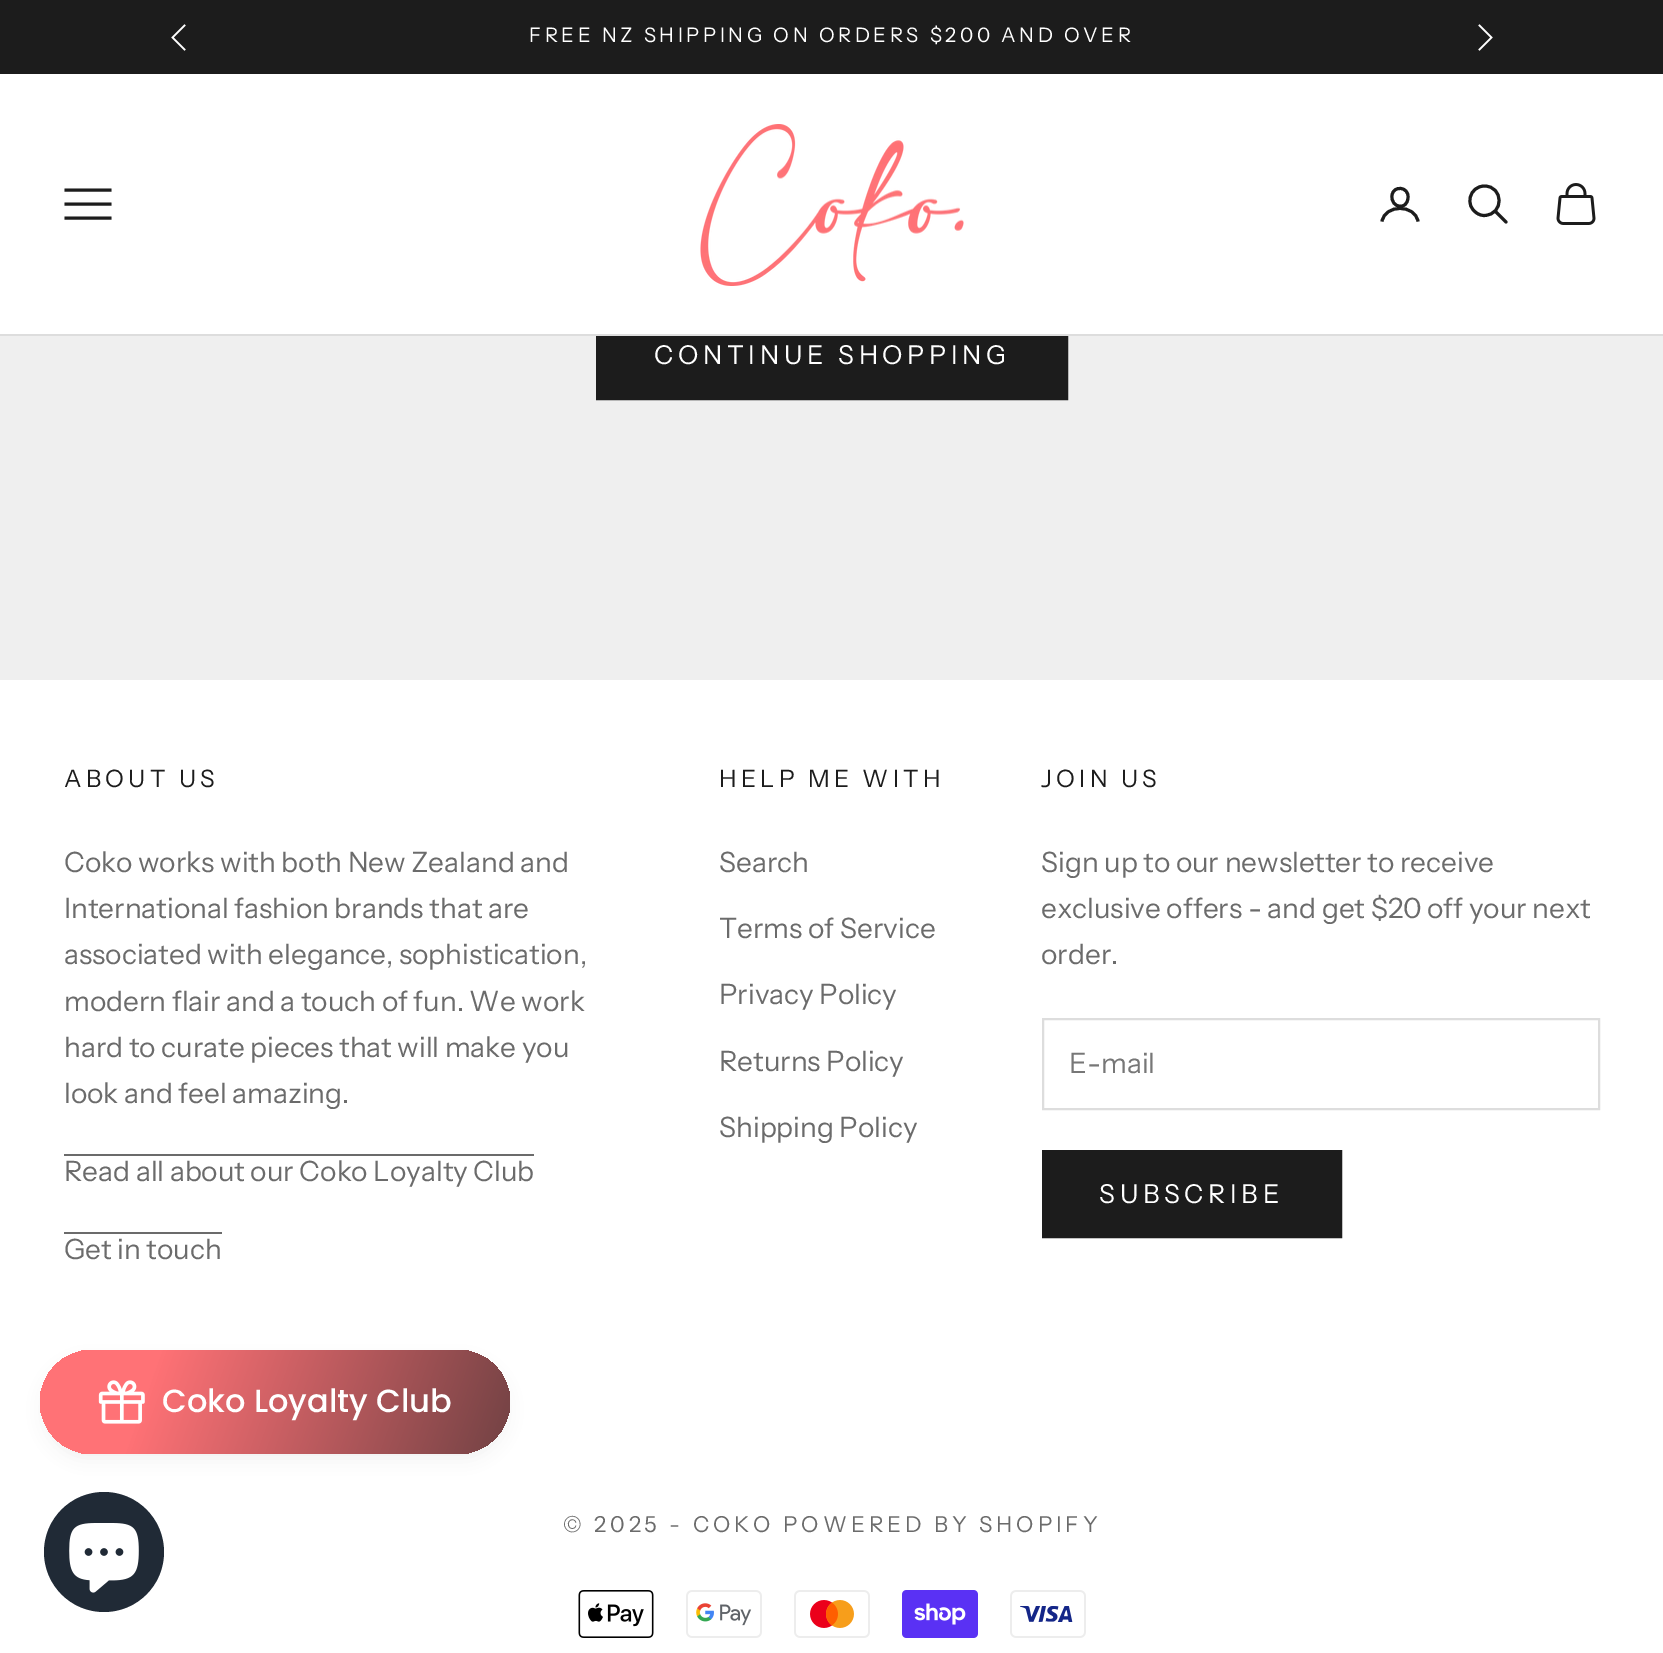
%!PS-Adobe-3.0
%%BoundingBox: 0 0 1663 1653
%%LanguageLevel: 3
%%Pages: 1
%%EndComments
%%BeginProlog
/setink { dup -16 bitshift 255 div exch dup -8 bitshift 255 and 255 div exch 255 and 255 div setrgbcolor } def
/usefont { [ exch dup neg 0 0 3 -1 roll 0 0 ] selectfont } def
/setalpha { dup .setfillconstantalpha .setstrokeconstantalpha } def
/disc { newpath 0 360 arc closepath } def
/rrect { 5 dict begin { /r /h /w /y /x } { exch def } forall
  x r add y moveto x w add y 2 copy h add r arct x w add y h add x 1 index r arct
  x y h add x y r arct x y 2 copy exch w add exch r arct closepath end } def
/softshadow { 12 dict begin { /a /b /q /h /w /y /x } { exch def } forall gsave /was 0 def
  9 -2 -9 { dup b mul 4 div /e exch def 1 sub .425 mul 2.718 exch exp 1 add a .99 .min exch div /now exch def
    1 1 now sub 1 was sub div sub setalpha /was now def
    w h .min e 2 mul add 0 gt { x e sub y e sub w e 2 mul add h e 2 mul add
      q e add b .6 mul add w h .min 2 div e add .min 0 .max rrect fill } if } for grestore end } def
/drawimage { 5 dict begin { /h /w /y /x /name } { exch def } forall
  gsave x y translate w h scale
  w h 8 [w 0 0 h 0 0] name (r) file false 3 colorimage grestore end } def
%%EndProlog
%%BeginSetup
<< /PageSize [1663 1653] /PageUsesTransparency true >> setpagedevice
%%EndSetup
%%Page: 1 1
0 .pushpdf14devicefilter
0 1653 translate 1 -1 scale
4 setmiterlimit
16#EFEFEF setink
0 0 1663 1653 rectfill
16#1C1C1C setink
0 0 1663 74 rectfill
16#FFFFFF setink
1.5 setlinewidth
2 setlinecap
184.5 25.5 moveto 172.5 37.5 lineto 184.5 49.5 lineto stroke
/InstrumentSans-Regular 20 usefont
529 42 moveto 3.6 0 (FREE NZ SHIPPING ON ORDERS $200 AND OVER) ashow
1479.5 49.5 moveto 1491.5 37.5 lineto 1479.5 25.5 lineto stroke
16#1C1C1C setink
598 336 468 62 rectfill
2 setlinewidth
0 setlinecap
597 311 470 88 rectstroke
16#FFFFFF setink
0 74 1663 260 rectfill
16#DDDDDD setink
0 334 1663 2 rectfill
16#1C1C1C setink
3 setlinewidth
2 setlinecap
66 218 moveto 110 218 lineto 66 204 moveto 110 204 lineto 66 190 moveto 110 190 lineto stroke
(img1.raw) 700 124 264 162 drawimage
1 setlinecap
1 setlinejoin
1408 197.5 moveto 1407.5 211 1390.5 208 1392 195.5 curveto 1393 185 1409 186.5 1408 197.5 curveto closepath stroke
0 setlinecap
0 setlinejoin
1382 221.5 moveto 1385 204 1415 204 1418 221.5 curveto stroke
1484.5 186 moveto 1469.5 186 1464 206 1477.5 213.5 curveto 1479.5 215 1482 215.5 1484.5 215.5 curveto 1504.5 214.5 1503.5 186 1484.5 186 curveto closepath stroke
1 setlinecap
1495.5 211.5 moveto 1506 222 lineto stroke
(img2.raw) 1556 183 40 42 drawimage
/InstrumentSans-Regular 26 usefont
16#FFFFFF setink
654 364 moveto 4.7 0 (CONTINUE SHOPPING) ashow
0 680 1663 973 rectfill
/InstrumentSans-Regular 24 usefont
16#1C1C1C setink
64 787 moveto 4.25 0 (ABOUT US) ashow
/InstrumentSans-Regular 28 usefont
16#6B6B6B setink
[
    [(Coko works with both New Zealand and) 64 872]
    [(International fashion brands that are) 64 918]
    [(associated with elegance, sophistication,) 64 964]
    [(modern flair and a touch of fun. We work) 64 1011]
    [(hard to curate pieces that will make you) 64 1057]
    [(look and feel amazing.) 64 1103]
    [(Read all about our Coko Loyalty Club) 64 1181]
] { aload pop moveto show } forall
64 1154 470 2 rectfill
64 1259 moveto (Get in touch) show
64 1232 158 2 rectfill
/InstrumentSans-Regular 24 usefont
16#1C1C1C setink
719 787 moveto 4.25 0 (HELP ME WITH) ashow
/InstrumentSans-Regular 28 usefont
16#6B6B6B setink
[
    [(Search) 719 872]
    [(Terms of Service) 719 938]
    [(Privacy Policy) 719 1004]
    [(Returns Policy) 719 1071]
    [(Shipping Policy) 719 1137]
] { aload pop moveto show } forall
/InstrumentSans-Regular 24 usefont
16#1C1C1C setink
1041 787 moveto 4.25 0 (JOIN US) ashow
/InstrumentSans-Regular 28 usefont
16#6B6B6B setink
[
    [(Sign up to our newsletter to receive) 1041 872]
    [(exclusive offers - and get $20 off your next) 1041 918]
    [(order.) 1041 964]
] { aload pop moveto show } forall
16#DDDDDD setink
2 setlinewidth
0 setlinecap
1043 1019 556 90 rectstroke
16#777777 setink
1069 1073 moveto (E-mail) show
16#1C1C1C setink
1043 1151 moveto 1341 1151 lineto 1341 1237 lineto 1043 1237 lineto closepath gsave fill grestore
stroke
/InstrumentSans-Regular 26 usefont
16#FFFFFF setink
1099 1203 moveto 4.7 0 (SUBSCRIBE) ashow
/InstrumentSans-Regular 22 usefont
16#6B6B6B setink
563 1532 moveto 3.95 0 (© 2025 - COKO POWERED BY SHOPIFY) ashow
(img3.raw) 578 1590 76 48 drawimage
(img4.raw) 686 1590 76 48 drawimage
(img5.raw) 794 1590 76 48 drawimage
(img6.raw) 902 1590 76 48 drawimage
(img7.raw) 1010 1590 76 48 drawimage
16#444444 setink
44 1362 462 96 48 8 0.08 softshadow
gsave 40 1350 470 104 52 rrect clip newpath
<< /ShadingType 2 /ColorSpace /DeviceRGB /Coords [50 1322 681 1546] /Extend [true true] /Function << /FunctionType 3 /Domain [0 1] /Functions [<< /FunctionType 2 /Domain [0 1] /C0 [1 0.447 0.463] /C1 [1 0.447 0.463] /N 1 >> << /FunctionType 2 /Domain [0 1] /C0 [1 0.447 0.463] /C1 [0.157 0.157 0.161] /N 1 >>] /Bounds [0.17] /Encode [0 1 0 1] >> >> shfill grestore
(img8.raw) 98 1380 47 44 drawimage
/Poppins-Medium 32 usefont
16#FFFFFF setink
162 1412 moveto (Coko Loyalty Club) show
16#202A36 setink
104 1552 60 disc fill
(img9.raw) 69 1523 70 70 drawimage
.poppdf14devicefilter showpage
%%EOF
